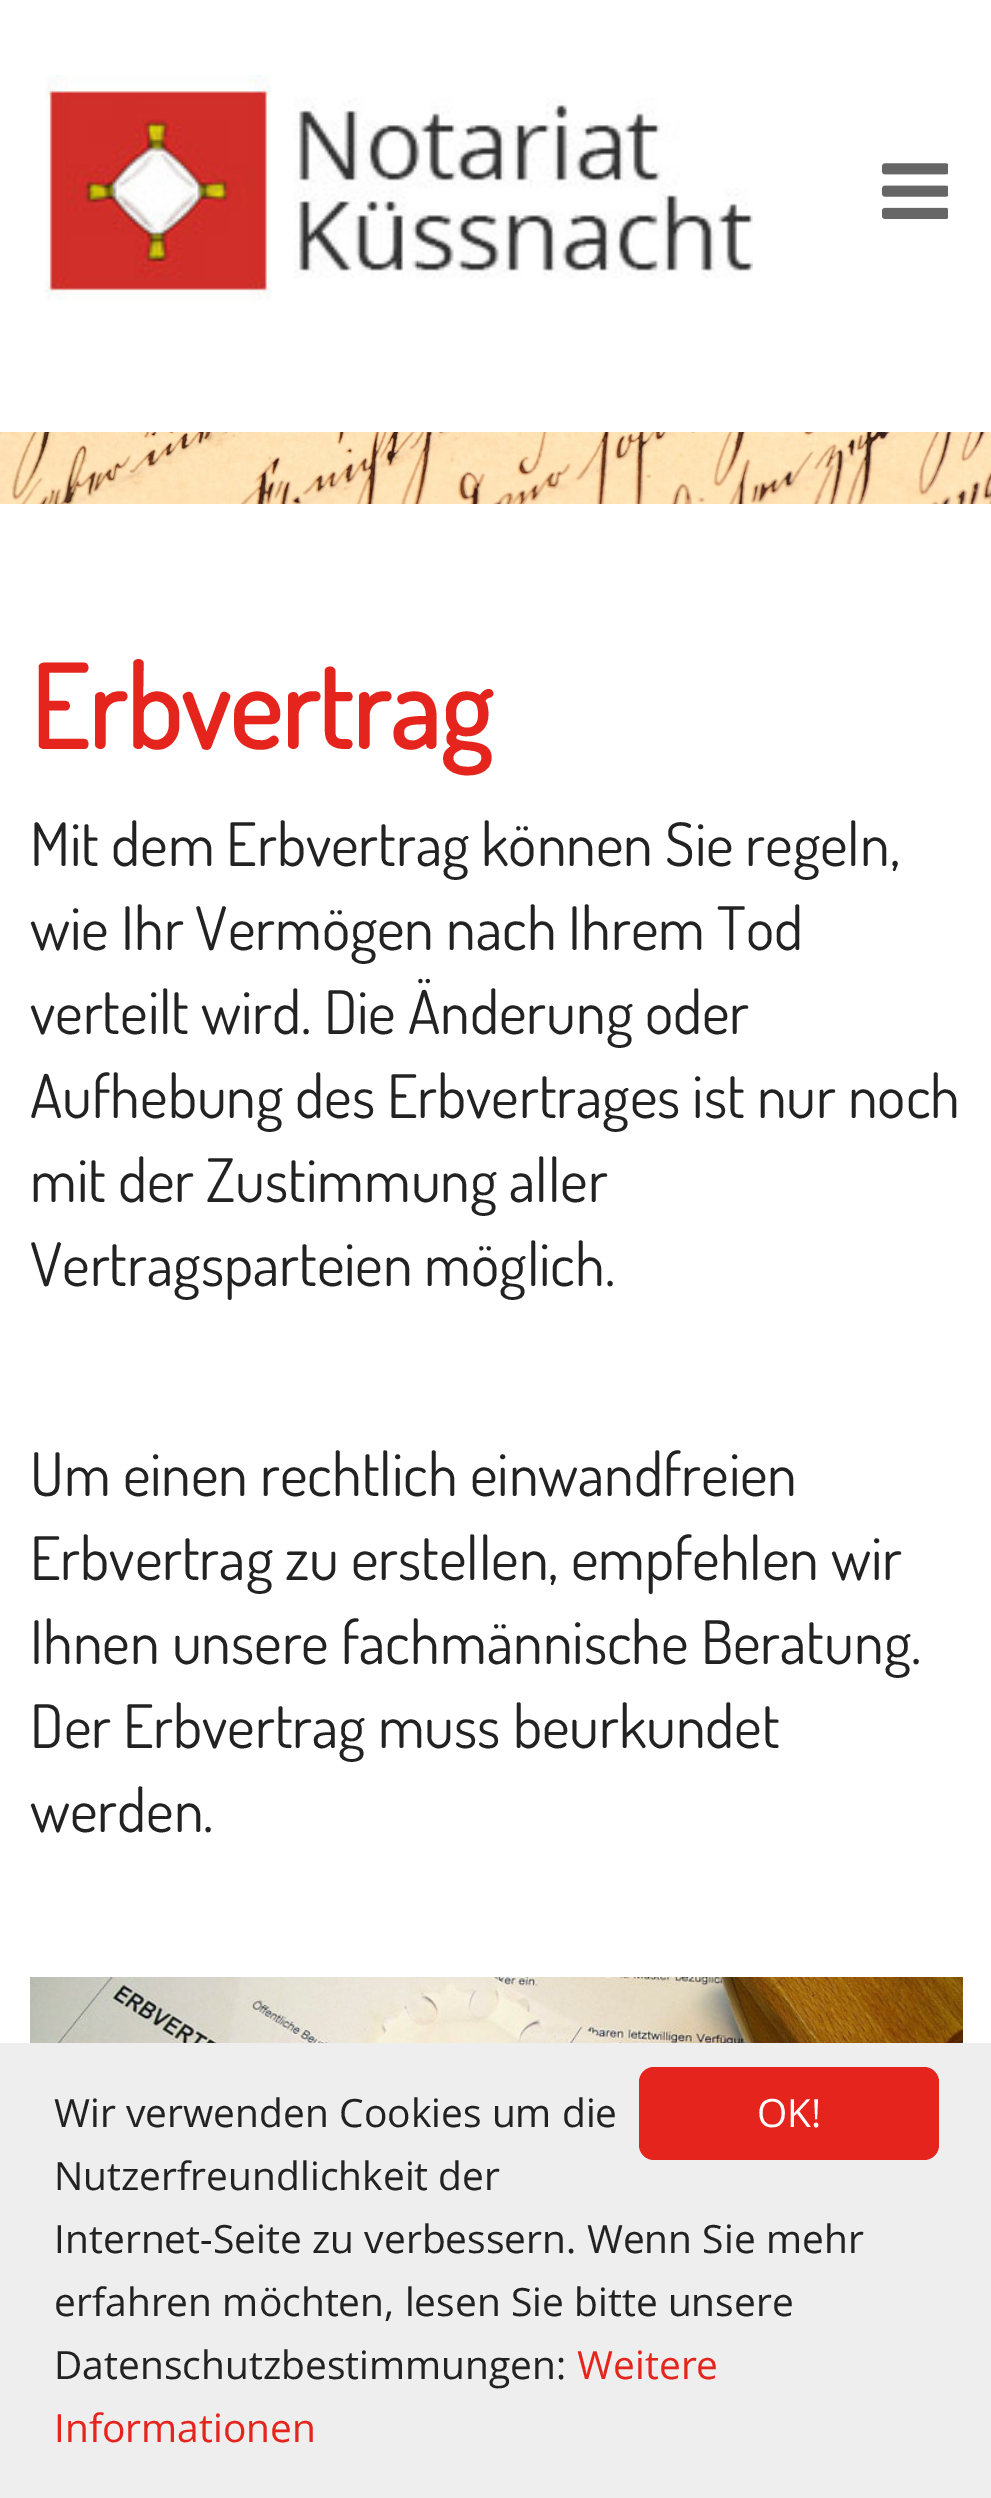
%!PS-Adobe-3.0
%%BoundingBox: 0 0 991 2498
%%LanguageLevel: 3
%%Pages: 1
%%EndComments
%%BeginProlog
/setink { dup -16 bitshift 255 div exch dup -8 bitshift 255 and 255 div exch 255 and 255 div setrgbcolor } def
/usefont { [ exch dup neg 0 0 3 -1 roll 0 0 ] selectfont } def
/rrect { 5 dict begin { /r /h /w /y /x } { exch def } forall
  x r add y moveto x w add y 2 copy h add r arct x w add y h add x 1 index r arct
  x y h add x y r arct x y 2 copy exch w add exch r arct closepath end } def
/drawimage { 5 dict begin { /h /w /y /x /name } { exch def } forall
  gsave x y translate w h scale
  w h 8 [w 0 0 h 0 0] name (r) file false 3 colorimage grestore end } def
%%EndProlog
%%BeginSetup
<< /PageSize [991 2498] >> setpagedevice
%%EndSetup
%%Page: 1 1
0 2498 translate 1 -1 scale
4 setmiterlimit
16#FFFFFF setink
0 0 991 2498 rectfill
(img1.raw) 45 75 708 226 drawimage
(img2.raw) 882 163 66 56 drawimage
(img3.raw) 0 432 991 72 drawimage
/Dosis-Bold 114 usefont
16#E5251D setink
30 749 moveto (Erbvertrag) show
/Dosis-Regular 60 usefont
16#222222 setink
[
    [(Mit dem Erbvertrag können Sie regeln,) 30 866]
    [(wie Ihr Vermögen nach Ihrem Tod) 30 950]
    [(verteilt wird. Die Änderung oder) 30 1034]
    [(Aufhebung des Erbvertrages ist nur noch) 30 1118]
    [(mit der Zustimmung aller) 30 1202]
    [(Vertragsparteien möglich.) 30 1286]
    [(Um einen rechtlich einwandfreien) 30 1496]
    [(Erbvertrag zu erstellen, empfehlen wir) 30 1580]
    [(Ihnen unsere fachmännische Beratung.) 30 1664]
    [(Der Erbvertrag muss beurkundet) 30 1748]
    [(werden.) 30 1832]
] { aload pop moveto show } forall
(img4.raw) 30 1977 933 66 drawimage
16#EEEEEE setink
0 2043 991 455 rectfill
/OpenSans-Regular 39 usefont
16#222222 setink
[
    [(Wir verwenden Cookies um die) 54 2127]
    [(Nutzerfreundlichkeit der) 54 2190]
    [(Internet-Seite zu verbessern. Wenn Sie mehr) 54 2253]
    [(erfahren möchten, lesen Sie bitte unsere) 54 2316]
    [(Datenschutzbestimmungen:) 54 2379]
] { aload pop moveto show } forall
16#E5251D setink
577 2379 moveto (Weitere) show
54 2442 moveto (Informationen) show
639 2067 300 93 15 rrect fill
16#FFFFFF setink
757 2127 moveto (OK!) show
showpage
%%EOF
